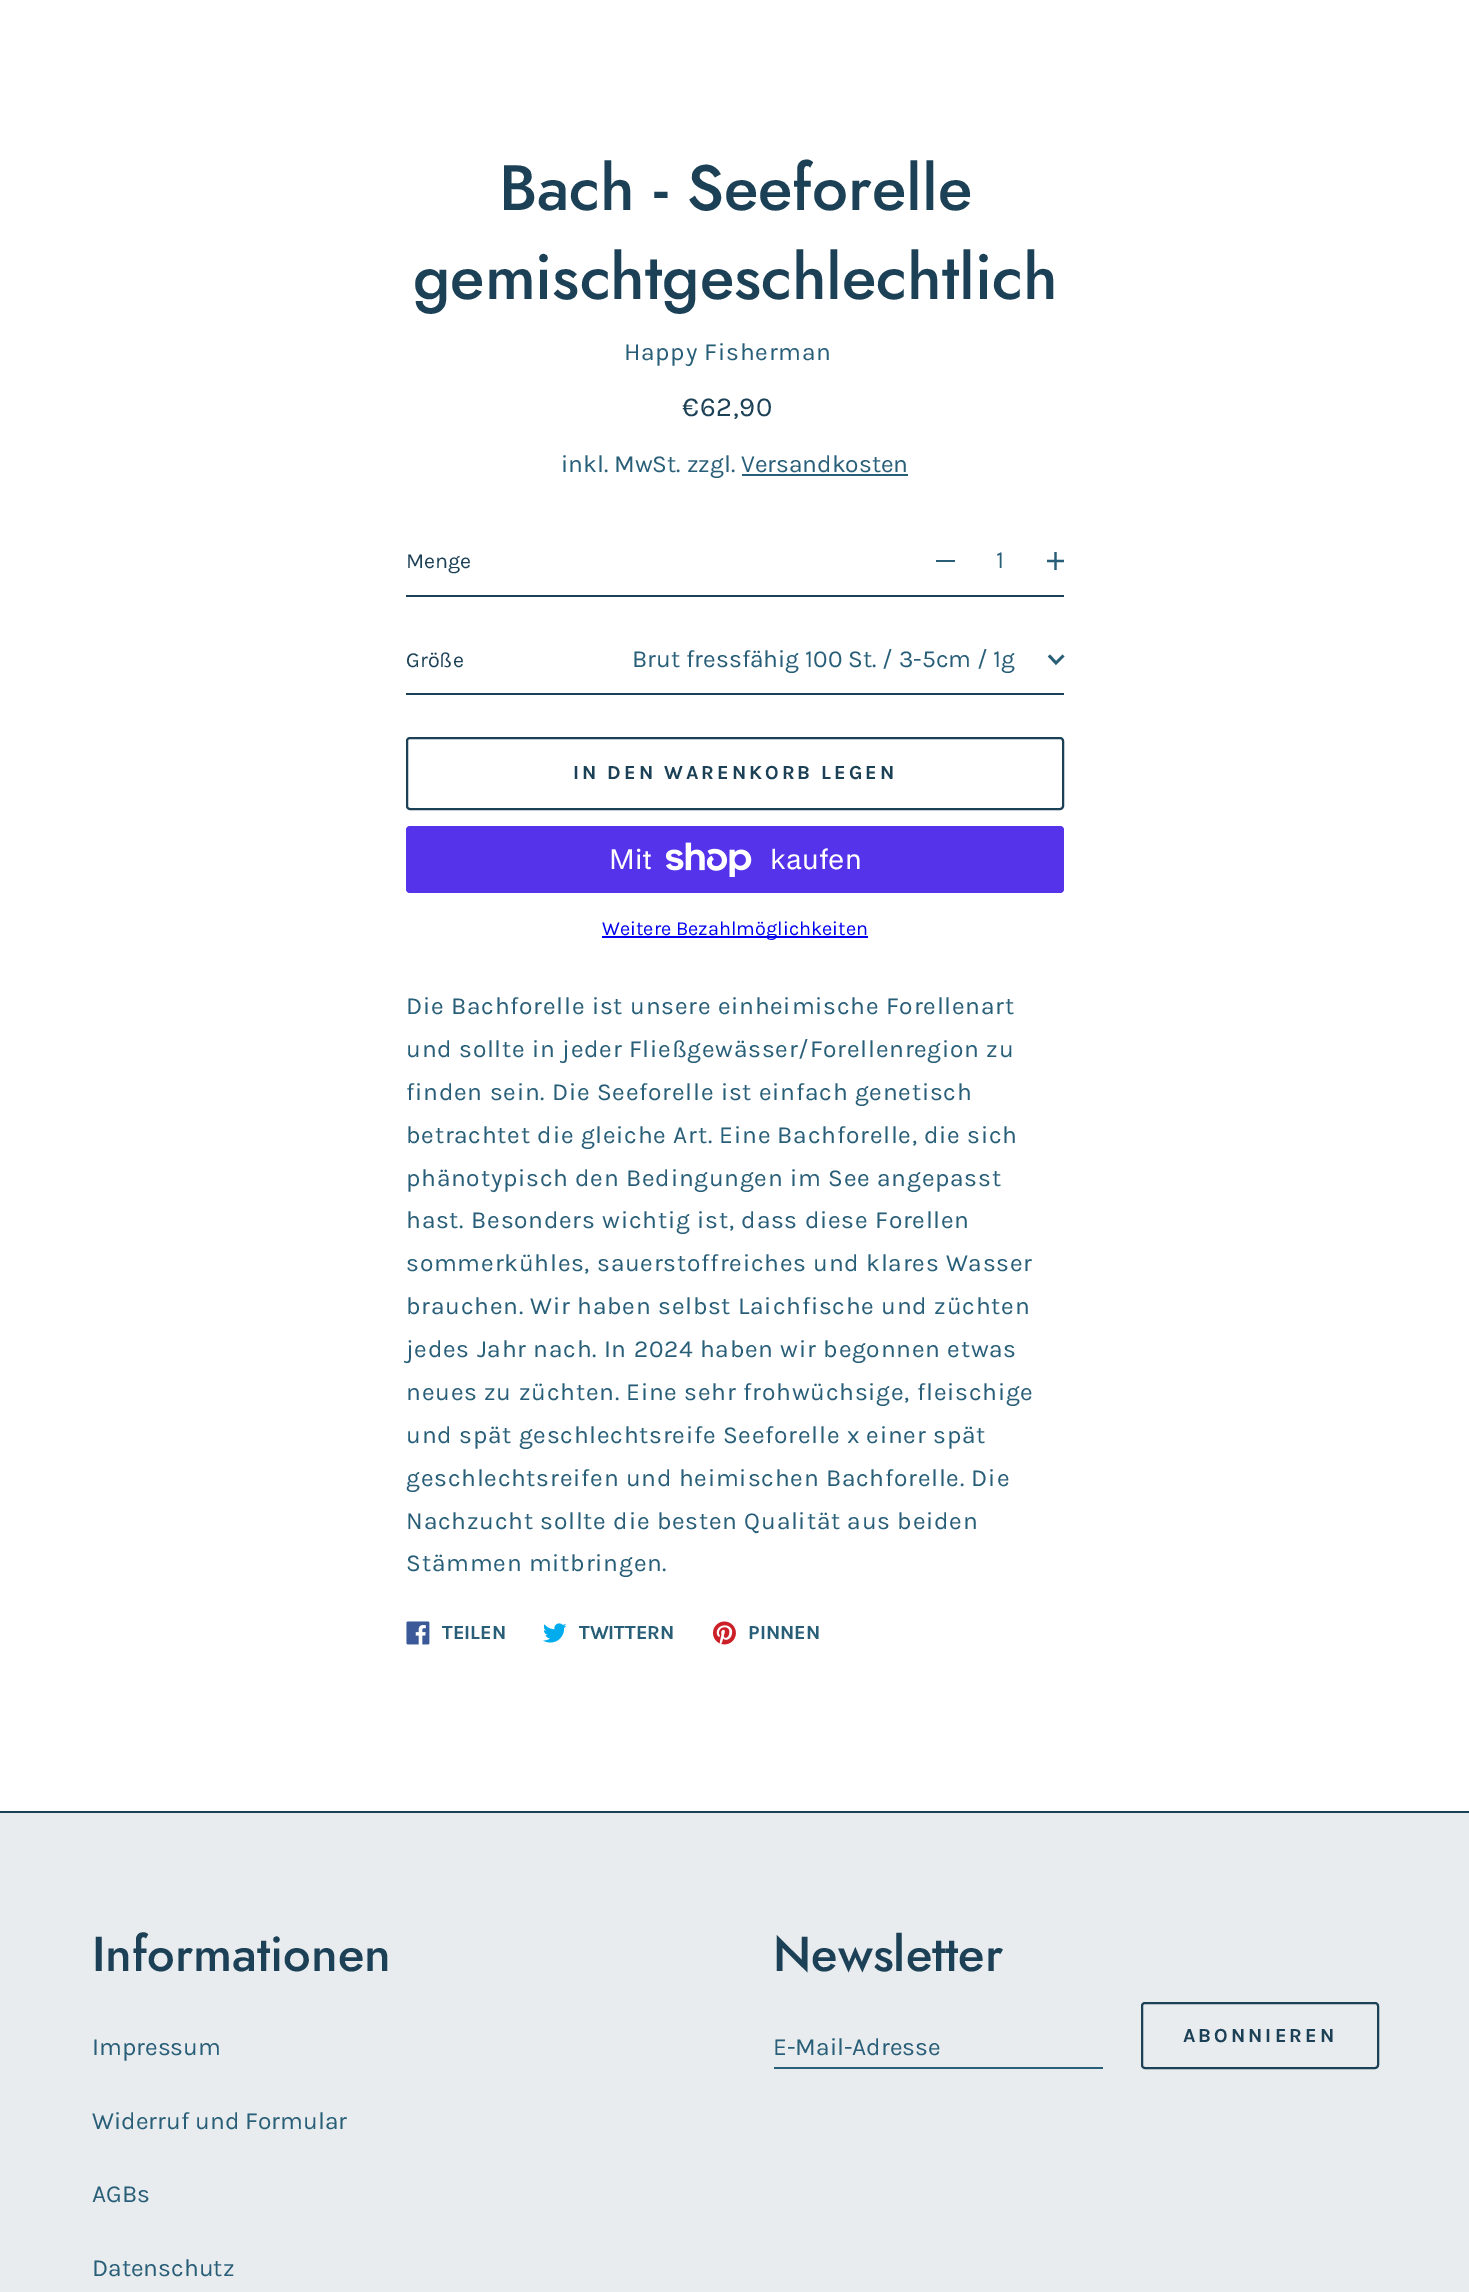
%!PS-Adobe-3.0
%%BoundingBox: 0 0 1469 2292
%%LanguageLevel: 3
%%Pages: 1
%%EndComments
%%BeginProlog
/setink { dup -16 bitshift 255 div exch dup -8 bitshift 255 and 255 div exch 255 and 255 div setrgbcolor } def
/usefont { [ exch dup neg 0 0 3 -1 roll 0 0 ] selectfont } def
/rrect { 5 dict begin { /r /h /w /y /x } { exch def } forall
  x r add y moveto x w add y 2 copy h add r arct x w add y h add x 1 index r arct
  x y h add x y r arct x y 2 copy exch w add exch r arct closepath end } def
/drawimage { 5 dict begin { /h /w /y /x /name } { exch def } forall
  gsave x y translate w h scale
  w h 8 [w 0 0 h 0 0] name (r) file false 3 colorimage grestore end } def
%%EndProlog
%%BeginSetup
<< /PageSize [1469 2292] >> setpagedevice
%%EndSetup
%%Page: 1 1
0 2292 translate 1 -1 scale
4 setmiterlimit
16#FFFFFF setink
0 0 1469 2292 rectfill
/Jost-Medium 63.75 usefont
16#1C4156 setink
499 210 moveto (Bach - Seeforelle) show
413 299 moveto (gemischtgeschlechtlich) show
/Karla-Regular 24.5 usefont
16#285E78 setink
624 360 moveto 0.77 0 (Happy Fisherman) ashow
/Karla-Regular 27.5 usefont
16#1C4156 setink
682 416 moveto 0.77 0 (€62,90) ashow
/Karla-Regular 24.5 usefont
16#285E78 setink
561 472 moveto (inkl. MwSt. zzgl. Versandkosten) show
742 474 166 2 rectfill
16#1C4156 setink
406 595 658 2 rectfill
/Karla-Regular 21.5 usefont
406 568 moveto (Menge) show
16#285E78 setink
936 560 19 2 rectfill
/Karla-Regular 24.5 usefont
996 568 moveto (1) show
gsave
1047 550 17 22 rectclip
2.3 setlinewidth
1046.5 561 moveto 1065 561 lineto 1055.5 552 moveto 1055.5 570 lineto stroke
grestore
16#1C4156 setink
406 693 658 2 rectfill
/Karla-Regular 21.5 usefont
406 667 moveto (Größe) show
16#285E78 setink
2.8 setlinewidth
1049 655.5 moveto 1056 663 lineto 1063.5 655.5 lineto stroke
/Karla-Regular 24.5 usefont
632 667 moveto (Brut fressfähig 100 St. / 3-5cm / 1g) show
16#1C4156 setink
2 setlinewidth
407 738 656 71 3 rrect stroke
/Karla-Bold 19.9 usefont
573 779 moveto 3 0 (IN DEN WARENKORB LEGEN) ashow
16#5433EB setink
406 826 658 67 4 rrect fill
/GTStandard-Regular 28 usefont
16#FFFFFF setink
609 869 moveto (Mit) show
(img1.raw) 666 842 86 35 drawimage
770 869 moveto (kaufen) show
16#0000EE setink
602 936 266 2 rectfill
/Karla-Regular 19.9 usefont
602 935 moveto (Weitere Bezahlmöglichkeiten) show
/Karla-Regular 24.5 usefont
16#285E78 setink
406 1014 moveto 0.77 0 (Die Bachforelle ist unsere einheimische Forellenart) ashow
406 1057 moveto 0.77 0 (und sollte in jeder Fließgewässer/Forellenregion zu) ashow
406 1100 moveto 0.77 0 (finden sein. Die Seeforelle ist einfach genetisch) ashow
406 1143 moveto 0.77 0 (betrachtet die gleiche Art. Eine Bachforelle, die sich) ashow
406 1186 moveto 0.77 0 (phänotypisch den Bedingungen im See angepasst) ashow
406 1228 moveto 0.77 0 (hast. Besonders wichtig ist, dass diese Forellen) ashow
406 1271 moveto 0.77 0 (sommerkühles, sauerstoffreiches und klares Wasser) ashow
406 1314 moveto 0.77 0 (brauchen. Wir haben selbst Laichfische und züchten) ashow
406 1357 moveto 0.77 0 (jedes Jahr nach. In 2024 haben wir begonnen etwas) ashow
406 1400 moveto 0.77 0 (neues zu züchten. Eine sehr frohwüchsige, fleischige) ashow
406 1443 moveto 0.77 0 (und spät geschlechtsreife Seeforelle x einer spät) ashow
406 1486 moveto 0.77 0 (geschlechtsreifen und heimischen Bachforelle. Die) ashow
406 1529 moveto 0.77 0 (Nachzucht sollte die besten Qualität aus beiden) ashow
406 1571 moveto 0.77 0 (Stämmen mitbringen.) ashow
(img2.raw) 406 1621 24 24 drawimage
/Karla-Bold 19.9 usefont
442 1639 moveto (TEILEN) show
(img3.raw) 543 1623 24 20 drawimage
579 1639 moveto (TWITTERN) show
(img4.raw) 713 1621 23 24 drawimage
748 1639 moveto (PINNEN) show
16#E9ECEE setink
0 1813 1469 479 rectfill
16#1C4156 setink
0 1811 1469 2 rectfill
/Jost-Medium 49 usefont
92 1971 moveto (Informationen) show
/Karla-Regular 24.5 usefont
16#285E78 setink
[
    [(Impressum) 92 2055]
    [(Widerruf und Formular) 92 2129]
    [(AGBs) 92 2202]
    [(Datenschutz) 92 2276]
] { aload pop moveto show } forall
/Jost-Medium 49 usefont
16#1C4156 setink
773 1971 moveto (Newsletter) show
1142 2003 236 65 3 rrect stroke
/Karla-Bold 19.9 usefont
1183 2042 moveto 3 0 (ABONNIEREN) ashow
/Karla-Regular 24.5 usefont
16#285E78 setink
773 2055 moveto (E-Mail-Adresse) show
774 2067 329 2 rectfill
showpage
%%EOF
